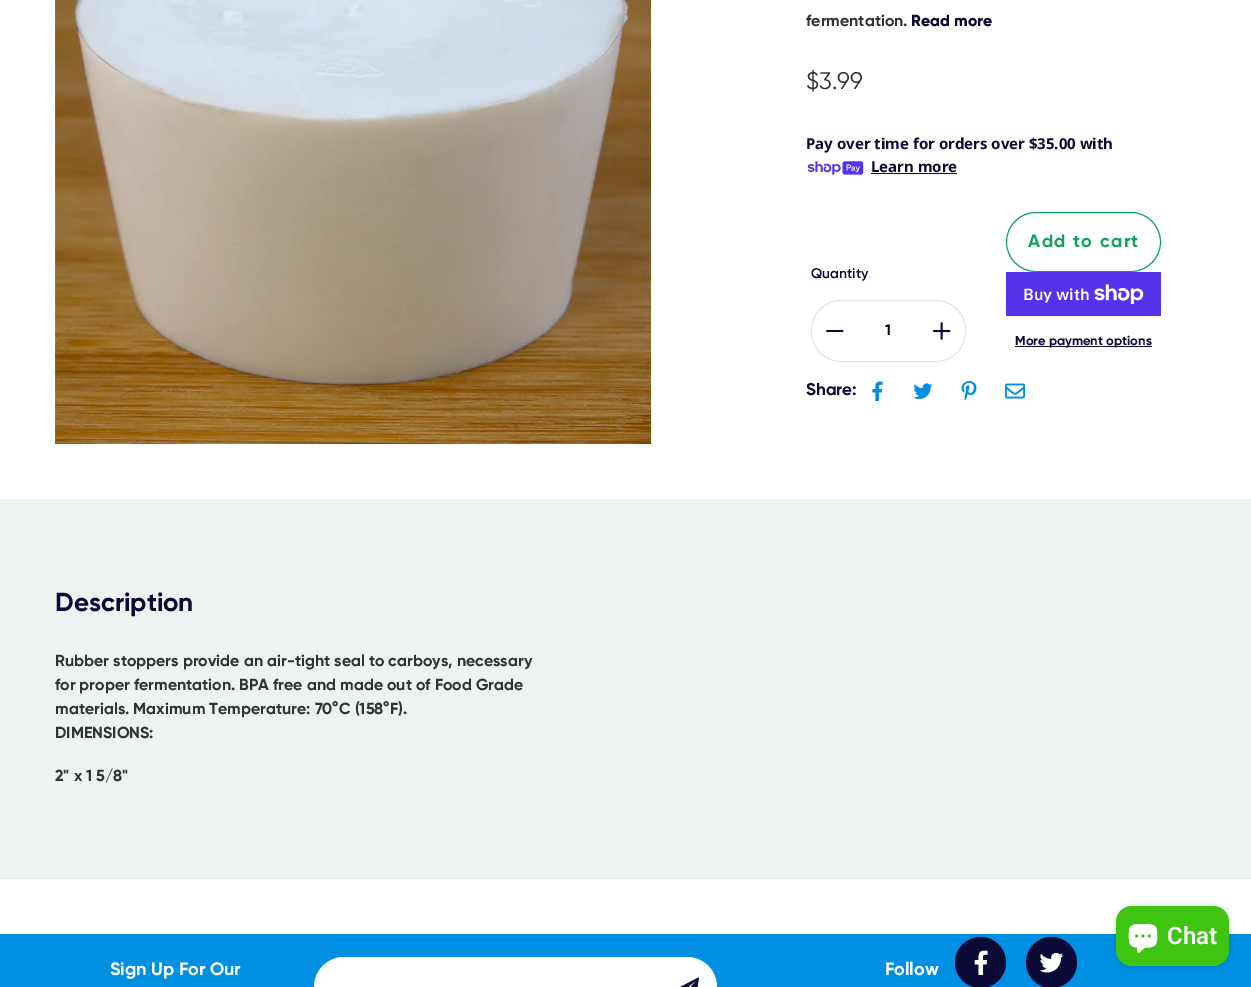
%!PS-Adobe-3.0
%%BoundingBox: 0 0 1251 987
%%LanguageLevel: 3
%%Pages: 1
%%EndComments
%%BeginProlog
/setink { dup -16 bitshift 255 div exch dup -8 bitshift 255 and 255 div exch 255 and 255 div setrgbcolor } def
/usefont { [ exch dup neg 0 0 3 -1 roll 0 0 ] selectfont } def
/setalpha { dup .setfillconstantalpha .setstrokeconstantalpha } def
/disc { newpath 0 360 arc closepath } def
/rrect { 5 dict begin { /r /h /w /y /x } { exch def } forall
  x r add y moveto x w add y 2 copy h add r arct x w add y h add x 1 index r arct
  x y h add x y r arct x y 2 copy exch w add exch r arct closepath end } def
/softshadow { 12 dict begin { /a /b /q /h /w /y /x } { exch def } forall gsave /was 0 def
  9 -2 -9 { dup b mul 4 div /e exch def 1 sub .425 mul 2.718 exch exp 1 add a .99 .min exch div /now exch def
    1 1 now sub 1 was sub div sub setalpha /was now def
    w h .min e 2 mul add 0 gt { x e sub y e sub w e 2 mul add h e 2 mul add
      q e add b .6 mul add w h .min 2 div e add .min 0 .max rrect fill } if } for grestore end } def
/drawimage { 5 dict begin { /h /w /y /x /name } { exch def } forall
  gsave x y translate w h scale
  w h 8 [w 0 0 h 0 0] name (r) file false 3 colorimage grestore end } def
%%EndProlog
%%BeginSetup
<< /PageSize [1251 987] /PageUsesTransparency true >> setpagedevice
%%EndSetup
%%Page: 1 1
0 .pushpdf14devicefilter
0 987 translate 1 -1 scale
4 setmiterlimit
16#FFFFFF setink
0 0 1251 987 rectfill
(img1.raw) 55 0 596 444 drawimage
/Gilroy-Bold 16 usefont
16#333232 setink
806 26 moveto (fermentation.) show
/Gilroy-ExtraBold 16 usefont
16#0B0A36 setink
911 26 moveto (Read more) show
/Gilroy-Regular 24 usefont
16#333232 setink
806 89 moveto ($3.99) show
/NotoSans-Bold 15 usefont
16#0B0A36 setink
806 149 moveto (Pay over time for orders over $35.00 with) show
(img2.raw) 807 161 57 14 drawimage
871 172 moveto (Learn more) show
871 173 86 1 rectfill
/Gilroy-SemiBold 14 usefont
811 278 moveto (Quantity) show
16#E4E4E4 setink
811.5 300.5 154 61 29.5 rrect stroke
(img3.raw) 826 330 18 2 drawimage
/Gilroy-Bold 15 usefont
16#000000 setink
885 335 moveto (1) show
(img4.raw) 933 322 18 18 drawimage
16#13A05D setink
1006.5 212.5 154 59 29.5 rrect stroke
/Gilroy-Bold 18 usefont
1028 247 moveto 1.5 0 (Add to cart) ashow
16#5433EB setink
1006 272 155 44 rectfill
/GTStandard-SemiBold 16 usefont
16#FFFFFF setink
1023 300 moveto (Buy with) show
(img5.raw) 1094 284 50 20 drawimage
16#0B0A36 setink
1015 346 137 1 rectfill
/Gilroy-Bold 13 usefont
1015 345 moveto (More payment options) show
/Gilroy-Bold 17 usefont
806 395 moveto (Share:) show
(img6.raw) 872 381 11 20 drawimage
(img7.raw) 913 383 20 16 drawimage
(img8.raw) 961 381 16 20 drawimage
(img9.raw) 1005 383 20 16 drawimage
16#EDF2F3 setink
0 499 1251 379 rectfill
/Gilroy-Bold 26 usefont
16#0B0A36 setink
55 611 moveto (Description) show
/Gilroy-Bold 16 usefont
16#333232 setink
[
    [(Rubber stoppers provide an air-tight seal to carboys, necessary) 55 666]
    [(for proper fermentation. BPA free and made out of Food Grade) 55 690]
    [(materials. Maximum Temperature: 70°C \(158°F\).) 55 714]
    [(DIMENSIONS:) 55 738]
    [(2" x 1 5/8") 55 781]
] { aload pop moveto show } forall
16#E5E5E5 setink
0 878 1251 1 rectfill
16#008FE3 setink
0 934 1251 53 rectfill
/Gilroy-Bold 18 usefont
16#FFFFFF setink
110 975 moveto (Sign Up For Our) show
344 957 moveto 661 957 lineto 661 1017 lineto 344 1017 lineto 327.5 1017 314 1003.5 314 987 curveto 314 970.5 327.5 957 344 957 curveto closepath fill
661 957 moveto 687 957 lineto 703.5 957 717 970.5 717 987 curveto 717 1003.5 703.5 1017 687 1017 curveto 661 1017 lineto closepath fill
(img10.raw) 680 977 19 10 drawimage
885 975 moveto (Follow) show
16#0B0A36 setink
980.5 962.5 25.5 disc fill
(img11.raw) 974 950 14 25 drawimage
1051.5 962.5 25.5 disc fill
(img12.raw) 1039 953 25 20 drawimage
16#000000 setink
1116 906 113 60 16 2.5 0.15 softshadow
16#3FC412 setink
1116 906 113 60 16 rrect fill
(img13.raw) 1128 924 30 29 drawimage
/Roboto-SemiBold 24 usefont
16#FFFFFF setink
1167 944 moveto (Chat) show
.poppdf14devicefilter showpage
%%EOF
